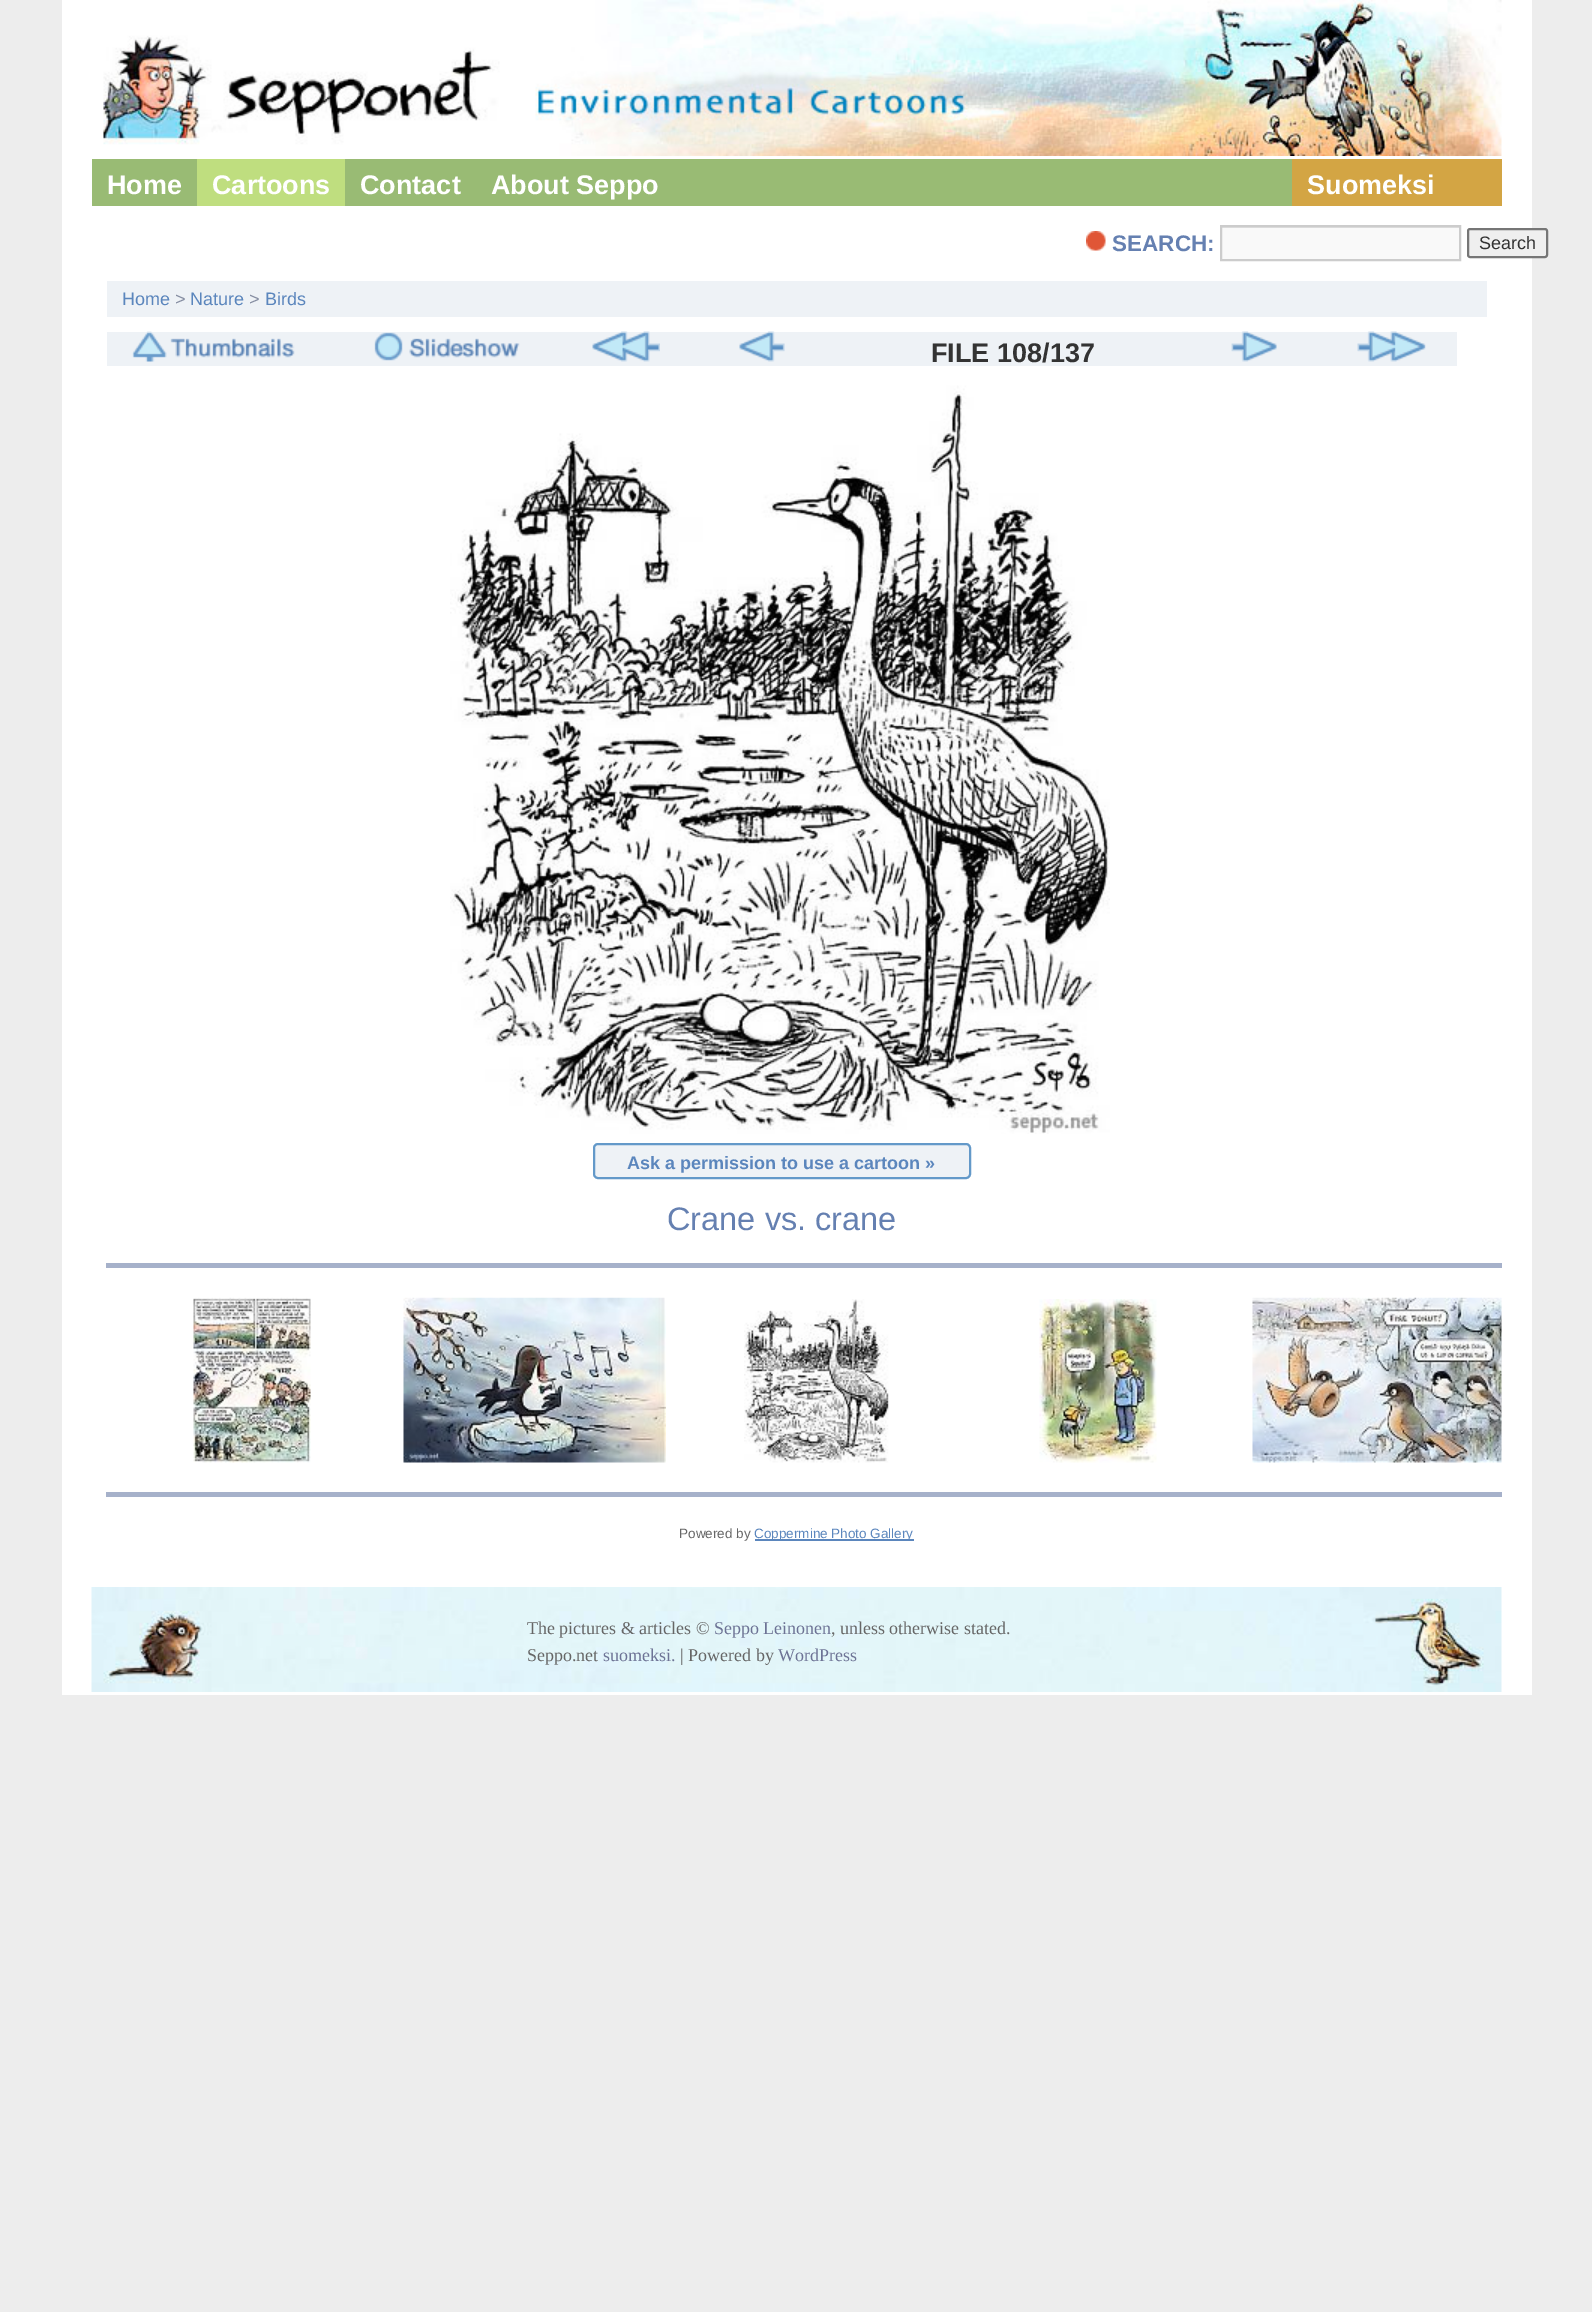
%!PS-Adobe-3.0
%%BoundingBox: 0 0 1592 2312
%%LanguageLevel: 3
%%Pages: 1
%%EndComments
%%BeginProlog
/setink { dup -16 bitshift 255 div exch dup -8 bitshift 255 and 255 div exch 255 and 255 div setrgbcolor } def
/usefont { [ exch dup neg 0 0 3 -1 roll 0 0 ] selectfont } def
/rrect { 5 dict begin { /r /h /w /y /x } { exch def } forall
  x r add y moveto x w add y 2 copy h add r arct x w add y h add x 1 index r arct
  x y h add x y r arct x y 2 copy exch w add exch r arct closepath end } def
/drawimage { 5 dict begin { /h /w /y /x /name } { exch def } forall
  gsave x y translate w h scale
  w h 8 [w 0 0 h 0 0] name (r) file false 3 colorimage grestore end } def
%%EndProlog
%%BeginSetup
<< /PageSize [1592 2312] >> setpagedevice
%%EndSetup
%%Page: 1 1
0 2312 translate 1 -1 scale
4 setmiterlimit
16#EDEDED setink
0 0 1592 2312 rectfill
16#FFFFFF setink
62 0 1470 1695 rectfill
(img1.raw) 103 0 1399 156 drawimage
16#99BB74 setink
92 159 1200 47 rectfill
/LiberationSans-Bold 27 usefont
16#FFFFFF setink
107 194 moveto (Home) show
16#BFDE7F setink
197 159 148 47 rectfill
16#FFFFFF setink
[
    [(Cartoons) 212 194]
    [(Contact) 360 194]
    [(About Seppo) 491 194]
] { aload pop moveto show } forall
16#D3A544 setink
1292 159 210 47 rectfill
16#FFFFFF setink
1307 194 moveto (Suomeksi) show
(img2.raw) 1086 231 20 20 drawimage
/LiberationSans-Bold 22.5 usefont
16#6580B1 setink
1112 251 moveto (SEARCH:) show
16#F9F9F9 setink
1222 228 237 31 rectfill
gsave
1221 227 239 33 rectclip
16#E0E0E0 setink
1072 78 moveto 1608 78 lineto 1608 408 lineto 1072 408 lineto closepath 1222 228 moveto 1461 228 lineto 1461 261 lineto 1222 261 lineto closepath eofill
grestore
16#CCCCCC setink
2 setlinewidth
1221 226 239 34 rectstroke
16#EFEFEF setink
1468 229 79 28 2 rrect gsave fill grestore
16#767676 setink
stroke
/LiberationSans-Regular 18 usefont
16#333333 setink
1479 249 moveto (Search) show
16#EEF2F6 setink
107 281 1380 36 rectfill
16#5B86BD setink
122 305 moveto (Home) show
16#868EA2 setink
175 305 moveto (>) show
16#5B86BD setink
190 305 moveto (Nature) show
16#868EA2 setink
249 305 moveto (>) show
16#5B86BD setink
265 305 moveto (Birds) show
16#EEF2F6 setink
107 332 1350 34 rectfill
(img3.raw) 132 331 163 31 drawimage
(img4.raw) 374 332 146 29 drawimage
(img5.raw) 592 331 68 31 drawimage
(img6.raw) 739 331 46 31 drawimage
/LiberationSans-Bold 27 usefont
16#333333 setink
931 362 moveto (FILE 108/137) show
(img7.raw) 1231 331 46 31 drawimage
(img8.raw) 1357 331 69 31 drawimage
(img9.raw) 450 385 660 749 drawimage
16#EEF2F6 setink
594 1144 376 34 4 rrect gsave fill grestore
16#6399C9 setink
stroke
/LiberationSans-Bold 18 usefont
16#5B86BD setink
627 1169 moveto (Ask a permission to use a cartoon ») show
/LiberationSans-Regular 32.5 usefont
16#6580B1 setink
667 1230 moveto (Crane vs. crane) show
16#A6B1CA setink
106 1263 1396 5 rectfill
(img10.raw) 193 1297 118 166 drawimage
(img11.raw) 403 1297 263 166 drawimage
(img12.raw) 744 1299 145 164 drawimage
(img13.raw) 1039 1299 118 164 drawimage
(img14.raw) 1252 1297 250 166 drawimage
106 1492 1396 5 rectfill
/LiberationSans-Regular 13.5 usefont
16#666666 setink
679 1538 moveto (Powered by) show
16#5B86BD setink
755 1539 159 2 rectfill
754 1538 moveto (Coppermine Photo Gallery) show
(img15.raw) 91 1587 1411 105 drawimage
/LiberationSerif-Regular 18 usefont
16#666666 setink
527 1634 moveto (The pictures & articles ©) show
16#6D7395 setink
714 1634 moveto (Seppo Leinonen) show
16#666666 setink
831 1634 moveto (, unless otherwise stated.) show
527 1661 moveto (Seppo.net) show
16#6D7395 setink
603 1661 moveto (suomeksi.) show
16#666666 setink
680 1661 moveto (| Powered by) show
16#6D7395 setink
778 1661 moveto (WordPress) show
showpage
%%EOF
